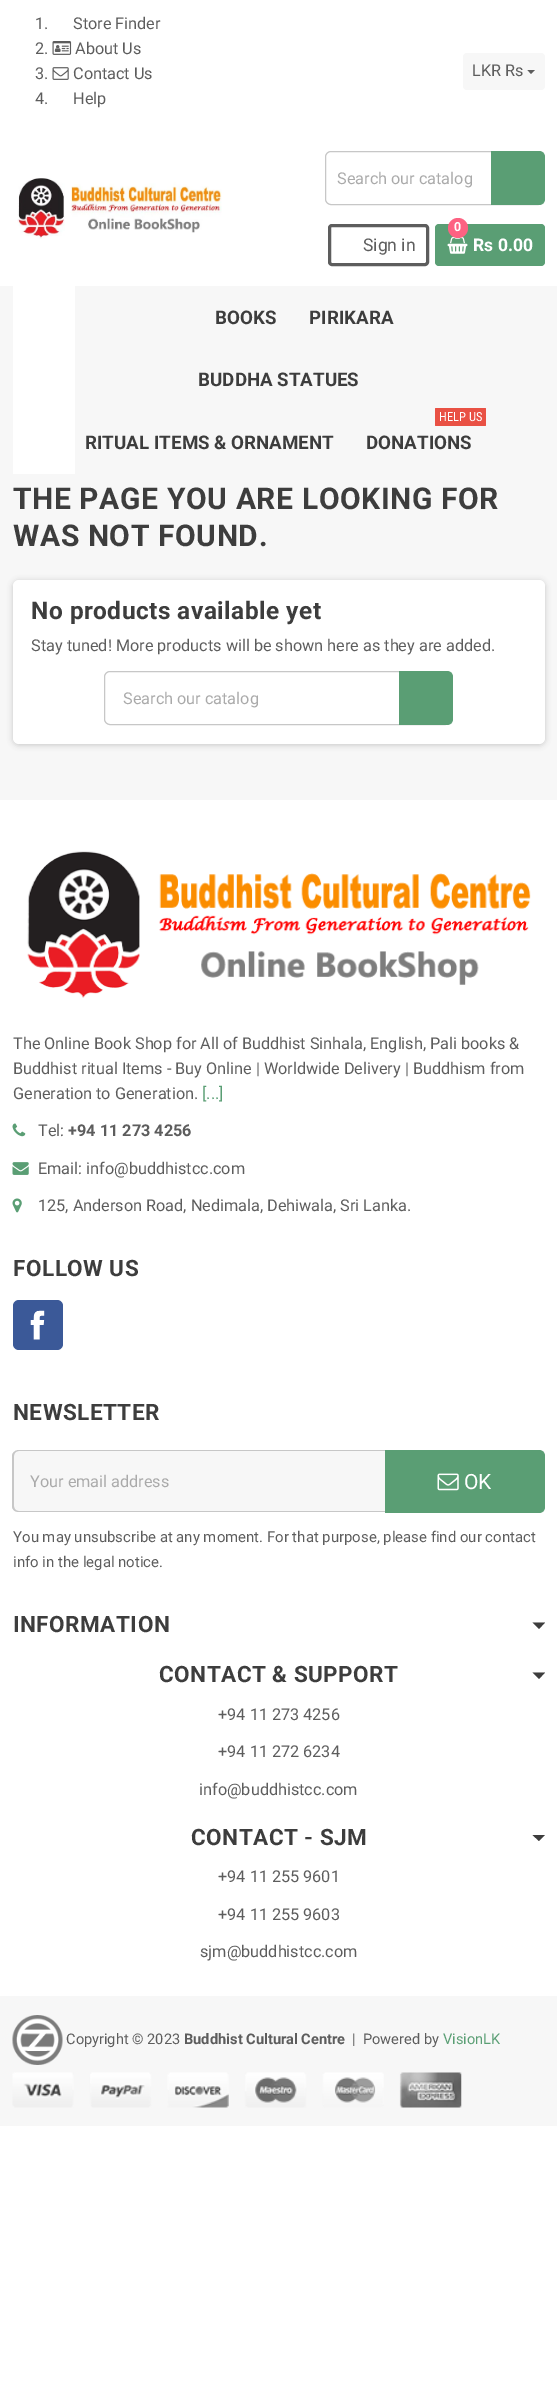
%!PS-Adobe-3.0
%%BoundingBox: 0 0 557 2402
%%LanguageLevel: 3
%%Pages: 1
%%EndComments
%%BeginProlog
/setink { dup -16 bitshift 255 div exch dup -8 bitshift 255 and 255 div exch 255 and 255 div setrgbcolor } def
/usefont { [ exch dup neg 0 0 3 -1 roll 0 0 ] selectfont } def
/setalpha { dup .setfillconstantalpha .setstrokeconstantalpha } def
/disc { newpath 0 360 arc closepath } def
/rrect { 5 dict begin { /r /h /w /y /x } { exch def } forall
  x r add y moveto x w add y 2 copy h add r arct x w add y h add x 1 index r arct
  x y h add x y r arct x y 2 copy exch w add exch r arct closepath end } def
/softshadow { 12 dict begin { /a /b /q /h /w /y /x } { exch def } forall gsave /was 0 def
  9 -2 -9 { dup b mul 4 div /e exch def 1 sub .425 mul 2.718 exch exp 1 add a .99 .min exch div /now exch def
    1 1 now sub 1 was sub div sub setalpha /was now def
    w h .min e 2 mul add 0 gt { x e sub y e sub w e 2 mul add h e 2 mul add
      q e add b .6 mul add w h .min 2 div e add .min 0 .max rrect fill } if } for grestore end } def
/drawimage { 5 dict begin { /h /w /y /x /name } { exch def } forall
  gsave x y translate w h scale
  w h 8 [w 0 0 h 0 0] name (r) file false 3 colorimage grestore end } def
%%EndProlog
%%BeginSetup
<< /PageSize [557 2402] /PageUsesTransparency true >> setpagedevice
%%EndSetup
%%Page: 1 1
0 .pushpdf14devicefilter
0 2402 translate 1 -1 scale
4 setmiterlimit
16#FFFFFF setink
0 0 557 2402 rectfill
/Roboto-Regular 16.25 usefont
16#5D5D5D setink
[
    [(1.) 35 29]
    [(Store Finder) 73 29]
    [(2.) 35 54]
] { aload pop moveto show } forall
(img1.raw) 52 41 20 14 drawimage
75 54 moveto (About Us) show
35 79 moveto (3.) show
(img2.raw) 52 67 17 13 drawimage
[
    [(Contact Us) 73 79]
    [(4.) 35 104]
    [(Help) 73 104]
] { aload pop moveto show } forall
16#F7F7F7 setink
463 53 82 37 4 rrect fill
16#5D5D5D setink
472 76 moveto (LKR Rs) show
527.5 70 moveto 535 70 lineto 531 74 lineto closepath fill
(img3.raw) 17 178 205 61 drawimage
16#C7C7C7 setink
325.5 151.5 218 53 5.5 rrect stroke
16#AAAAAA setink
337 184 moveto (Search our catalog) show
16#5A9E74 setink
491 151 moveto 539 151 lineto 542.5 151 545 153.5 545 157 curveto 545 199 lineto 545 202.5 542.5 205 539 205 curveto 491 205 lineto closepath fill
16#5D5D5D setink
3 setlinewidth
329.5 225.5 98 39 2.5 rrect stroke
/Roboto-Regular 17.5 usefont
363 251 moveto (Sign in) show
16#5A9E74 setink
435 224 110 42 4 rrect fill
(img4.raw) 447 236 21 18 drawimage
16#FD6282 setink
458 228 10 disc fill
/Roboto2-Bold 12.5 usefont
16#FFFFFF setink
454 231 moveto (0) show
/Roboto2-Bold 17.5 usefont
473 251 moveto (Rs 0.00) show
16#F7F7F7 setink
0 286 557 514 rectfill
16#FFFFFF setink
13 286 62 188 rectfill
/Roboto-Bold 18.75 usefont
16#3D3D3D setink
[
    [(BOOKS) 215 324]
    [(PIRIKARA) 309 324]
    [(BUDDHA STATUES) 198 386]
    [(RITUAL ITEMS & ORNAMENT) 85 449]
] { aload pop moveto show } forall
16#E95144 setink
435 408 51 18 1 rrect fill
/RobotoCondensed-Regular 12.5 usefont
16#FFFFFF setink
439 421 moveto (HELP US) show
/Roboto-Bold 18.75 usefont
16#3D3D3D setink
366 449 moveto (DONATIONS) show
/Roboto-Bold 30 usefont
13 509 moveto 0.6 0 (THE PAGE YOU ARE LOOKING FOR) ashow
13 546 moveto 0.6 0 (WAS NOT FOUND.) ashow
16#000000 setink
13 581 532 164 6 3 0.2 softshadow
16#FFFFFF setink
13 580 532 164 6 rrect fill
/Roboto-Bold 24.4 usefont
16#3D3D3D setink
31 619 moveto 0.5 0 (No products available yet) ashow
/Roboto-Regular 16.25 usefont
16#5D5D5D setink
31 651 moveto (Stay tuned! More products will be shown here as they are added.) show
16#C7C7C7 setink
1 setlinewidth
104.5 671.5 346 53 5.5 rrect stroke
16#AAAAAA setink
123 704 moveto (Search our catalog) show
16#5A9E74 setink
399 671 moveto 447 671 lineto 450.5 671 453 673.5 453 677 curveto 453 719 lineto 453 722.5 450.5 725 447 725 curveto 399 725 lineto closepath fill
(img5.raw) 27 851 504 147 drawimage
16#5D5D5D setink
[
    [(The Online Book Shop for All of Buddhist Sinhala, English, Pali books &) 13 1049]
    [(Buddhist ritual Items - Buy Online | Worldwide Delivery | Buddhism from) 13 1074]
    [(Generation to Generation.) 13 1099]
] { aload pop moveto show } forall
16#5A9E74 setink
202 1099 moveto ([...]) show
(img6.raw) 12 1123 14 14 drawimage
16#5D5D5D setink
38 1136 moveto (Tel:) show
/Roboto2-Bold 16.25 usefont
68 1136 moveto (+94 11 273 4256) show
(img7.raw) 12 1162 17 13 drawimage
/Roboto-Regular 16.25 usefont
38 1174 moveto (Email: info@buddhistcc.com) show
(img8.raw) 12 1198 10 15 drawimage
38 1211 moveto (125, Anderson Road, Nedimala, Dehiwala, Sri Lanka.) show
/Roboto-Bold 22.5 usefont
16#3D3D3D setink
13 1276 moveto 0.5 0 (FOLLOW US) ashow
16#3B5998 setink
13 1300 50 50 6 rrect fill
(img9.raw) 30 1310 15 30 drawimage
16#3D3D3D setink
13 1420 moveto 0.5 0 (NEWSLETTER) ashow
16#F7F7F7 setink
19 1451 moveto 385 1451 lineto 385 1511 lineto 19 1511 lineto 16 1511 14 1509 14 1506 curveto 14 1456 lineto 14 1453 16 1451 19 1451 curveto closepath fill
16#C7C7C7 setink
19 1450 moveto 385 1450 lineto 385 1512 lineto 19 1512 lineto 15 1512 12 1510 12 1506 curveto 12 1456 lineto 12 1453 15 1450 19 1450 curveto closepath 19 1451 moveto 385 1451 lineto 385 1511 lineto 19 1511 lineto 16 1511 14 1509 14 1506 curveto 14 1456 lineto 14 1453 16 1451 19 1451 curveto closepath eofill
/Roboto-Regular 16.25 usefont
16#AAAAAA setink
30 1487 moveto (Your email address) show
16#5A9E74 setink
385 1450 moveto 539 1450 lineto 542.5 1450 545 1452.5 545 1456 curveto 545 1507 lineto 545 1510.5 542.5 1513 539 1513 curveto 385 1513 lineto closepath fill
(img10.raw) 437 1473 22 18 drawimage
/Roboto-Regular 21 usefont
16#FFFFFF setink
464 1489 moveto (OK) show
/Roboto-Regular 14.95 usefont
16#5D5D5D setink
13 1542 moveto (You may unsubscribe at any moment. For that purpose, please find our contact) show
13 1567 moveto (info in the legal notice.) show
/Roboto-Bold 22.5 usefont
16#3D3D3D setink
13 1632 moveto 0.5 0 (INFORMATION) ashow
532.5 1622.5 moveto 545 1622.5 lineto 539 1629 lineto closepath fill
159 1682 moveto 0.5 0 (CONTACT & SUPPORT) ashow
532.5 1672.5 moveto 545 1672.5 lineto 539 1679 lineto closepath fill
/Roboto-Regular 16.25 usefont
16#5D5D5D setink
[
    [(+94 11 273 4256) 218 1720]
    [(+94 11 272 6234) 218 1757]
    [(info@buddhistcc.com) 199 1795]
] { aload pop moveto show } forall
/Roboto-Bold 22.5 usefont
16#3D3D3D setink
191 1845 moveto 0.5 0 (CONTACT - SJM) ashow
532.5 1835 moveto 545 1835 lineto 539 1841 lineto closepath fill
/Roboto-Regular 16.25 usefont
16#5D5D5D setink
[
    [(+94 11 255 9601) 218 1882]
    [(+94 11 255 9603) 218 1920]
    [(sjm@buddhistcc.com) 200 1957]
] { aload pop moveto show } forall
16#F7F7F7 setink
0 1996 557 130 rectfill
(img11.raw) 12 2015 51 50 drawimage
/Roboto-Regular 14.6 usefont
16#5D5D5D setink
66 2044 moveto (Copyright © 2023) show
/Roboto2-Bold 14.6 usefont
184 2044 moveto (Buddhist Cultural Centre) show
/Roboto-Regular 14.6 usefont
352 2044 moveto (|  Powered by) show
16#5A9E74 setink
443 2044 moveto (VisionLK) show
(img12.raw) 12 2072 450 36 drawimage
.poppdf14devicefilter showpage
%%EOF
